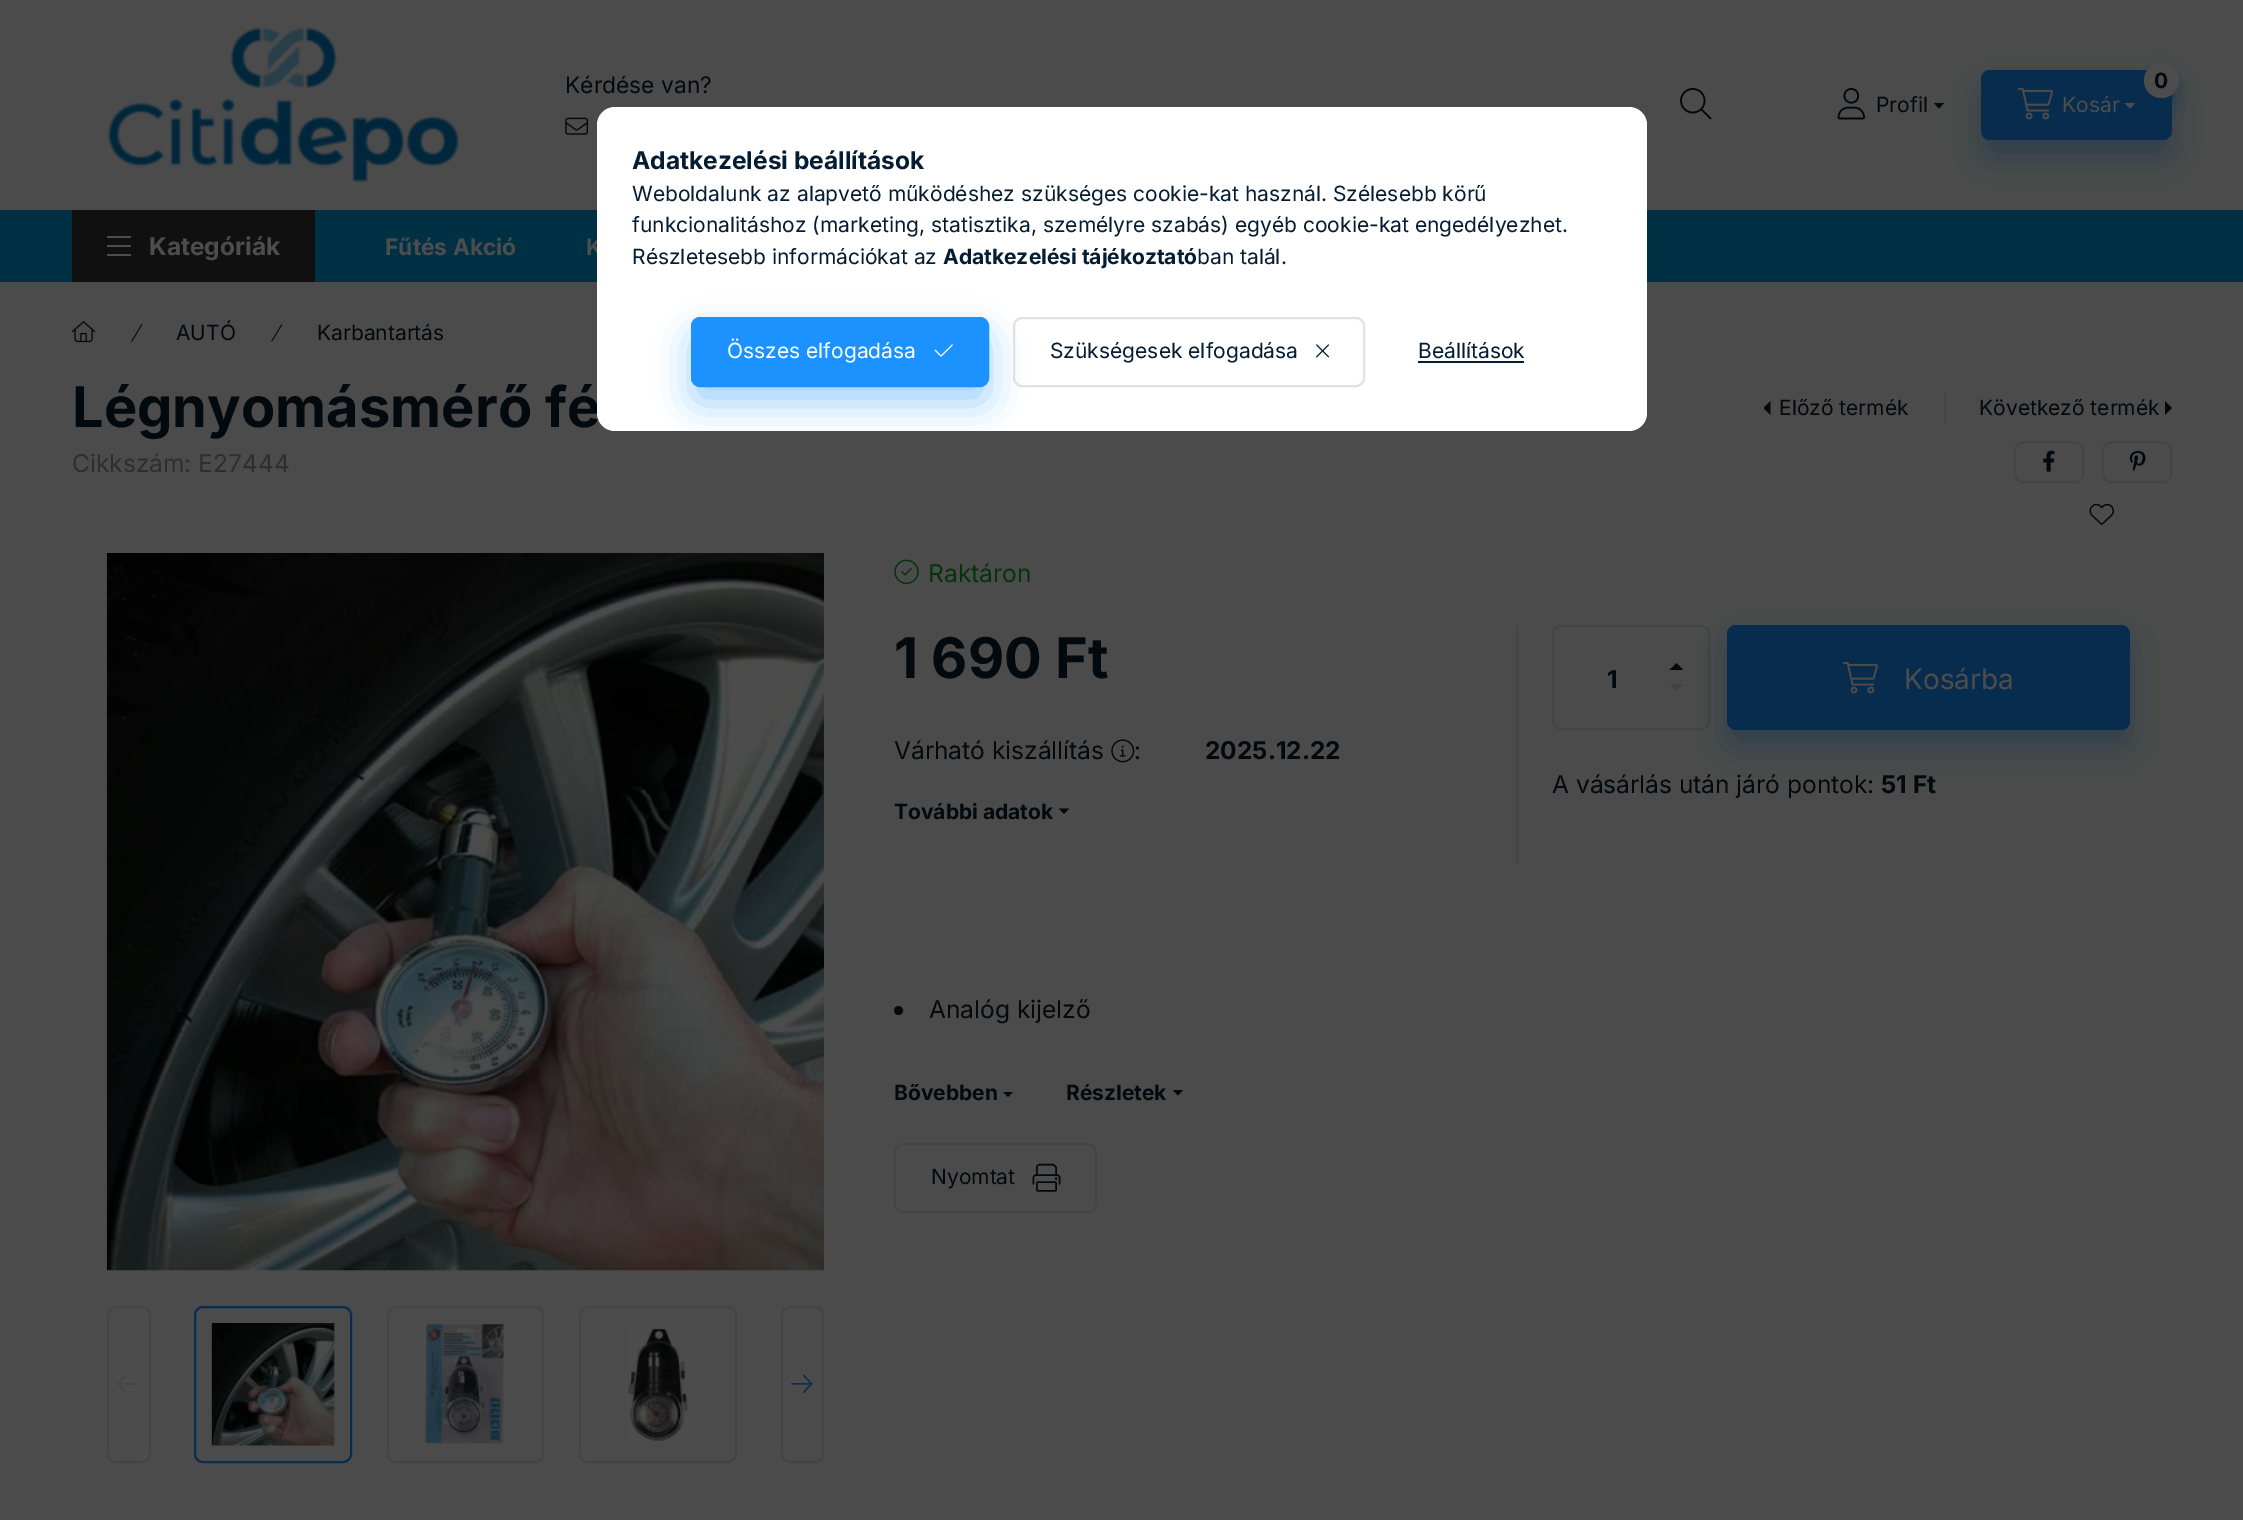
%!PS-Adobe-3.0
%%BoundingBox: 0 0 2243 1520
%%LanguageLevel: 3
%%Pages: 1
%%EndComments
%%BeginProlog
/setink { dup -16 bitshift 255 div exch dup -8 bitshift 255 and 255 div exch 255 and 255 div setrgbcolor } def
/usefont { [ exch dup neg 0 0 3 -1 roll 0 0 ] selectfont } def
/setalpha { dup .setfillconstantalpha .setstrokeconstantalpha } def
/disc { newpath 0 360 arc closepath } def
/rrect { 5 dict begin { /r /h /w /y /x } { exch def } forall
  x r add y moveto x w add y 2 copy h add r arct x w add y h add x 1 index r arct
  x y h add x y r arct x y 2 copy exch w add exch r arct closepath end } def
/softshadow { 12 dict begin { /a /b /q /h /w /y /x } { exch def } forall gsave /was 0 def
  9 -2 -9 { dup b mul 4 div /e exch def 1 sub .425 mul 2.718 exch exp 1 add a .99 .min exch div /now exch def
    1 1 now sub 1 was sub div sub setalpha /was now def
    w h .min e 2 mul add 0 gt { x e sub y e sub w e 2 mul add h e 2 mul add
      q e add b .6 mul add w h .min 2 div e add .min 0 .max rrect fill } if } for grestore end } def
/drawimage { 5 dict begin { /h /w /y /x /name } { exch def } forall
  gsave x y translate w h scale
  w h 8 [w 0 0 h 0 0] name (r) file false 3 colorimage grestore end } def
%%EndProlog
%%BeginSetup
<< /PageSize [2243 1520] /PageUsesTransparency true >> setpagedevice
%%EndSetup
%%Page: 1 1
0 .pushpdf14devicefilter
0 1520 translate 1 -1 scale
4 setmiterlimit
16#4B4B4B setink
0 0 2243 1520 rectfill
(img1.raw) 108 27 351 156 drawimage
/Inter-Regular 22.75 usefont
16#02090F setink
565 93 moveto (Kérdése van?) show
(img2.raw) 565 117 23 18 drawimage
(img3.raw) 1680 87 32 33 drawimage
(img4.raw) 1837 87 29 33 drawimage
/Inter-Regular 21 usefont
1876 112 moveto (Profil) show
16#003044 setink
0 210 2243 72 rectfill
16#082C4D setink
1981 88 191 70 9 17.5 0.4 softshadow
16#02090F setink
1934 103 moveto 1944 103 lineto 1939 108.5 lineto closepath fill
16#082C4D setink
1981 70 191 70 9 rrect fill
2144 72 35 35 17.5 9 0.4 softshadow
16#4D4D4D setink
2161.5 80.5 17.5 disc fill
/Inter-Bold 21 usefont
16#02090F setink
2154 88 moveto (0) show
(img5.raw) 2017 87 36 33 drawimage
/Inter-Regular 21 usefont
16#4D4D4D setink
2062 112 moveto (Kosár) show
2124.5 103 moveto 2135 103 lineto 2130 108.5 lineto closepath fill
[
    [72 210 243 72 16#101010]
    [107 236 24 2 16#4D4D4D]
    [107 245 24 2 16#4D4D4D]
    [107 254 24 2 16#4D4D4D]
] { aload pop setink rectfill } forall
/Inter-Bold 24.5 usefont
149 255 moveto (Kategóriák) show
/Inter-Bold 22.75 usefont
385 255 moveto (Fűtés Akció) show
586 255 moveto (K) show
(img6.raw) 71 321 25 22 drawimage
(img7.raw) 131 324 12 18 drawimage
/Inter-Regular 21 usefont
16#02090F setink
176 340 moveto (AUTÓ) show
(img7.raw) 271 324 12 18 drawimage
317 340 moveto (Karbantartás) show
/Inter-Bold 56 usefont
72 427 moveto (Légnyomásmérő fé) show
1770.5 415 moveto 1770.5 401 lineto 1763.5 408 lineto closepath fill
/Inter-Regular 21 usefont
1779 415 moveto (Előző termék) show
16#444444 setink
1944 392 2 32 rectfill
16#02090F setink
1979 415 moveto (Következő termék) show
2165 415 moveto 2165 401 lineto 2172 408 lineto closepath fill
/Inter-Regular 24.5 usefont
16#2E2E2E setink
72 472 moveto (Cikkszám: E27444) show
16#444444 setink
2 setlinewidth
2015 442 68 40 8 rrect stroke
(img8.raw) 2043 450 12 22 drawimage
2103 442 68 40 8 rrect stroke
(img9.raw) 2129 450 17 22 drawimage
(img10.raw) 2089 503 25 22 drawimage
(img11.raw) 106 553 719 718 drawimage
108 1307 42 155 8 rrect stroke
(img12.raw) 117 1374 22 19 drawimage
16#082C4D setink
195 1307 156 155 8 rrect stroke
(img13.raw) 211 1323 124 123 drawimage
16#444444 setink
388 1307 155 155 8 rrect stroke
(img14.raw) 423 1323 85 123 drawimage
580 1307 156 155 8 rrect stroke
(img15.raw) 626 1328 63 113 drawimage
782 1307 41 155 8 rrect stroke
(img16.raw) 791 1374 22 19 drawimage
(img17.raw) 894 559 25 26 drawimage
16#05340A setink
928 582 moveto (Raktáron) show
/Inter-Bold 56 usefont
16#02090F setink
894 678 moveto (1 690 Ft) show
/Inter-Regular 24.5 usefont
894 759 moveto (Várható kiszállítás) show
(img18.raw) 1111 739 24 24 drawimage
1134 759 moveto (:) show
/Inter-Bold 24.5 usefont
1205 759 moveto (2025.12.22) show
/Inter-Bold 21 usefont
894 819 moveto (További adatok) show
1059 808.5 moveto 1069 808.5 lineto 1064 814 lineto closepath fill
16#444444 setink
1516 625 2 240 rectfill
1553 626 156 103 8 rrect stroke
/Inter-Bold 24.5 usefont
16#02090F setink
1607 688 moveto (1) show
1683.5 670 moveto 1669.5 670 lineto 1676.5 663 lineto closepath fill
16#424242 setink
1669.5 684 moveto 1683.5 684 lineto 1676.5 691 lineto closepath fill
16#082C4D setink
1727 642 403 105 9 17.5 0.4 softshadow
1727 625 403 105 9 rrect fill
(img5.raw) 1842 661 36 33 drawimage
/Inter-Regular 28 usefont
16#4D4D4D setink
1904 689 moveto (Kosárba) show
/Inter-Regular 24.5 usefont
16#02090F setink
1552 793 moveto (A vásárlás után járó pontok:) show
/Inter-Bold 24.5 usefont
1881 793 moveto (51 Ft) show
898.5 1010.5 4.5 disc fill
/Inter-Regular 24.5 usefont
929 1018 moveto (Analóg kijelző) show
/Inter-Bold 21 usefont
894 1100 moveto (Bővebben) show
1003 1092 moveto 1013 1092 lineto 1008 1097 lineto closepath fill
1066 1100 moveto (Részletek) show
1172.5 1090 moveto 1183 1090 lineto 1178 1095.5 lineto closepath fill
16#444444 setink
895 1144 201 68 8 rrect stroke
/Inter-Regular 21 usefont
16#02090F setink
931 1184 moveto (Nyomtat) show
(img19.raw) 1032 1163 29 29 drawimage
16#FFFFFF setink
597 107 1050 324 18 rrect fill
/Inter-Bold 24.5 usefont
16#051D33 setink
632 169 moveto (Adatkezelési beállítások) show
/Inter-Regular 21 usefont
[
    [(Weboldalunk az alapvető működéshez szükséges cookie-kat használ. Szélesebb körű) 632 201]
    [(funkcionalitáshoz \(marketing, statisztika, személyre szabás\) egyéb cookie-kat engedélyezhet.) 632 232]
    [(Részletesebb információkat az) 632 264]
] { aload pop moveto show } forall
/Inter-Bold 21 usefont
943 264 moveto (Adatkezelési tájékoztató) show
/Inter-Regular 21 usefont
1197 264 moveto (ban talál.) show
gsave
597 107 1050 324 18 rrect clip newpath
16#1B92FF setink
691 334 298 70 9 17.5 0.4 softshadow
grestore
16#1B92FF setink
692 318 296 68 8 rrect gsave fill grestore
stroke
16#FFFFFF setink
727 358 moveto (Összes elfogadása) show
(img20.raw) 934 344 19 13 drawimage
16#E1E1E1 setink
1014 318 350 68 8 rrect stroke
16#051D33 setink
1050 358 moveto (Szükségesek elfogadása) show
(img21.raw) 1316 344 14 14 drawimage
1418 358 moveto (Beállítások) show
1418 361 106 2 rectfill
.poppdf14devicefilter showpage
%%EOF
